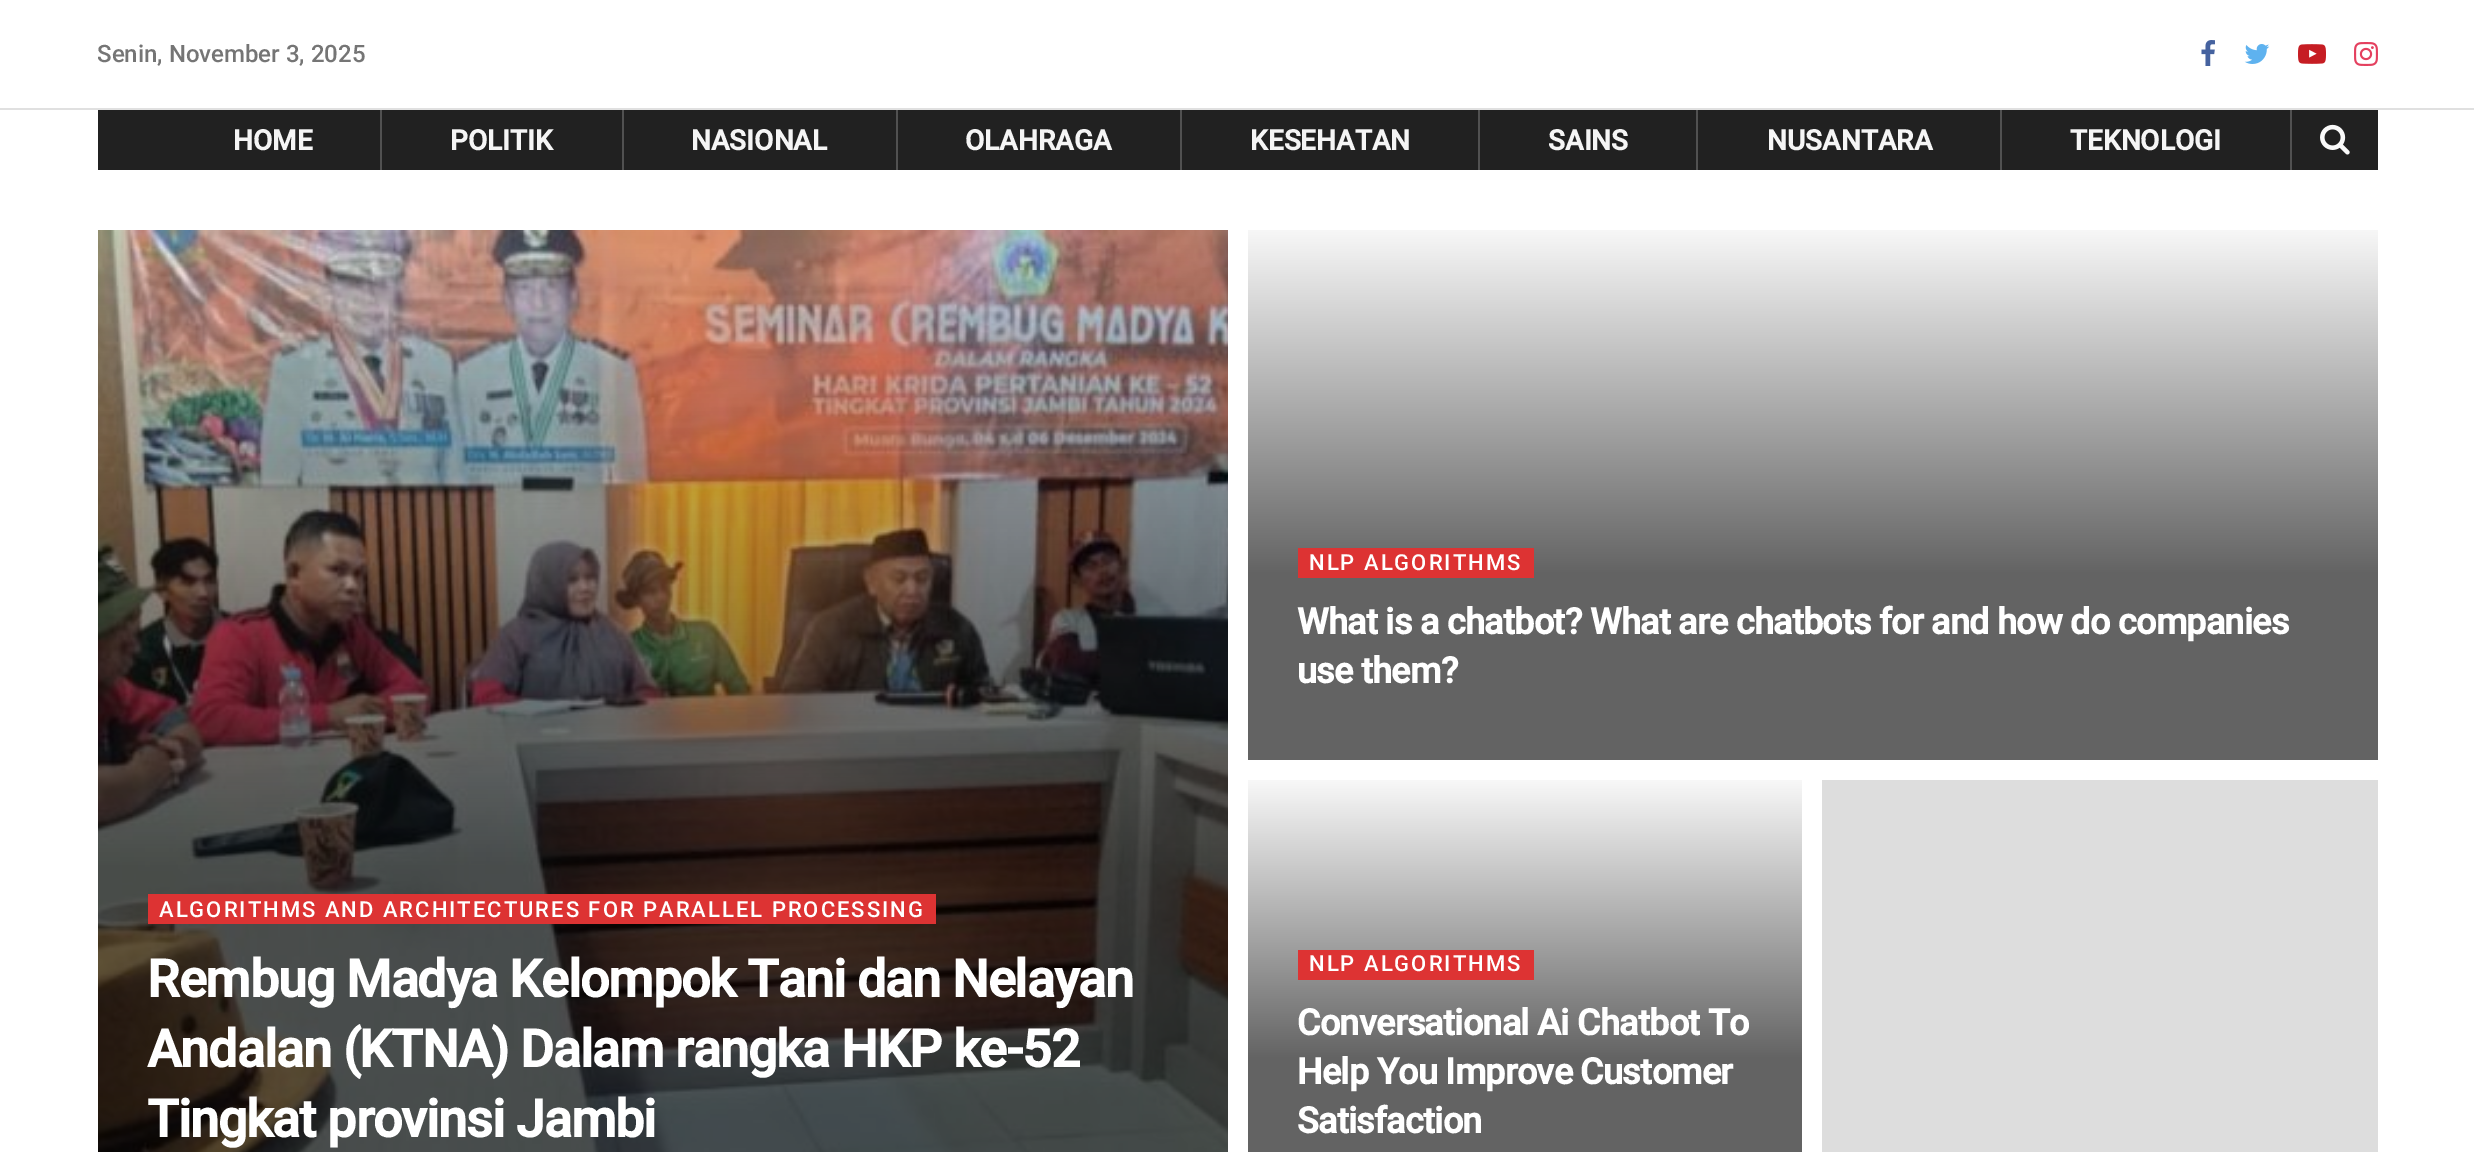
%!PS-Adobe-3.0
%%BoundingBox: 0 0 2474 1152
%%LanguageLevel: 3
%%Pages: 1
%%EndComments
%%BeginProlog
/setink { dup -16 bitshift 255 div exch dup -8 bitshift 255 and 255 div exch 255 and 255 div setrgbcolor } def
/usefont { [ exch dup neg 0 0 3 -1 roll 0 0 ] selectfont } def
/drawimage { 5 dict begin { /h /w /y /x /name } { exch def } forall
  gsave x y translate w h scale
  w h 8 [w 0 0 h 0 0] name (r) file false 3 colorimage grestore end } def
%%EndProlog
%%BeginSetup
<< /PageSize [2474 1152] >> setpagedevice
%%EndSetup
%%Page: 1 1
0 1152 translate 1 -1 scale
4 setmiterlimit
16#FFFFFF setink
0 0 2474 1152 rectfill
16#E0E0E0 setink
0 108 2474 2 rectfill
/Roboto-Medium 24 usefont
16#757575 setink
97 62 moveto (Senin, November 3, 2025) show
(img1.raw) 2201 40 14 26 drawimage
(img2.raw) 2244 44 26 20 drawimage
(img3.raw) 2298 44 28 20 drawimage
(img4.raw) 2354 42 24 24 drawimage
[
    [98 110 2280 60 16#212121]
    [2290 110 2 60 16#515151]
    [380 110 2 60 16#515151]
] { aload pop setink rectfill } forall
/Roboto-Bold 28 usefont
16#F5F5F5 setink
233 150 moveto (HOME) show
16#515151 setink
622 110 2 60 rectfill
16#F5F5F5 setink
450 150 moveto (POLITIK) show
16#515151 setink
896 110 2 60 rectfill
16#F5F5F5 setink
691 150 moveto (NASIONAL) show
16#515151 setink
1180 110 2 60 rectfill
16#F5F5F5 setink
965 150 moveto (OLAHRAGA) show
16#515151 setink
1478 110 2 60 rectfill
16#F5F5F5 setink
1250 150 moveto (KESEHATAN) show
16#515151 setink
1696 110 2 60 rectfill
16#F5F5F5 setink
1548 150 moveto (SAINS) show
16#515151 setink
2000 110 2 60 rectfill
16#F5F5F5 setink
1767 150 moveto (NUSANTARA) show
2070 150 moveto (TEKNOLOGI) show
(img5.raw) 2320 124 30 31 drawimage
(img6.raw) 98 230 1130 922 drawimage
16#DD3333 setink
148 894 788 30 rectfill
/Roboto-Medium 22 usefont
16#FFFFFF setink
159 917 moveto 2 0 (ALGORITHMS AND ARCHITECTURES FOR PARALLEL PROCESSING) ashow
/Roboto-Bold 52 usefont
147 997 moveto -1.05 0 (Rembug Madya Kelompok Tani dan Nelayan) ashow
147 1067 moveto -1.05 0 (Andalan \(KTNA\) Dalam rangka HKP ke-52) ashow
147 1137 moveto -1.05 0 (Tingkat provinsi Jambi) ashow
gsave 1248 230 moveto 2378 230 lineto 2378 760 lineto 1248 760 lineto closepath clip newpath
<< /ShadingType 2 /ColorSpace /DeviceRGB /Coords [1783 230 1783 760] /Extend [true true] /Function << /FunctionType 3 /Domain [0 1] /Functions [<< /FunctionType 2 /Domain [0 1] /C0 [0.969 0.969 0.969] /C1 [0.388 0.388 0.388] /N 1 >> << /FunctionType 2 /Domain [0 1] /C0 [0.388 0.388 0.388] /C1 [0.388 0.388 0.388] /N 1 >>] /Bounds [0.65] /Encode [0 1 0 1] >> >> shfill grestore
16#DD3333 setink
1298 548 236 30 rectfill
/Roboto-Medium 22 usefont
16#FFFFFF setink
1309 570 moveto 2 0 (NLP ALGORITHMS) ashow
/Roboto-Bold 36 usefont
1297 634 moveto -0.72 0 (What is a chatbot? What are chatbots for and how do companies) ashow
1297 683 moveto -0.72 0 (use them?) ashow
gsave 1248 780 moveto 1802 780 lineto 1802 1152 lineto 1248 1152 lineto closepath clip newpath
<< /ShadingType 2 /ColorSpace /DeviceRGB /Coords [1495 780 1495 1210] /Extend [true true] /Function << /FunctionType 3 /Domain [0 1] /Functions [<< /FunctionType 2 /Domain [0 1] /C0 [0.973 0.973 0.973] /C1 [0.388 0.388 0.388] /N 1 >> << /FunctionType 2 /Domain [0 1] /C0 [0.388 0.388 0.388] /C1 [0.388 0.388 0.388] /N 1 >>] /Bounds [0.65] /Encode [0 1 0 1] >> >> shfill grestore
16#DD3333 setink
1298 950 236 30 rectfill
/Roboto-Medium 22 usefont
16#FFFFFF setink
1309 971 moveto 2 0 (NLP ALGORITHMS) ashow
/Roboto-Bold 36 usefont
1297 1035 moveto -0.72 0 (Conversational Ai Chatbot To) ashow
1297 1084 moveto -0.72 0 (Help You Improve Customer) ashow
1297 1133 moveto -0.72 0 (Satisfaction) ashow
16#DDDDDD setink
1822 780 556 372 rectfill
showpage
%%EOF
